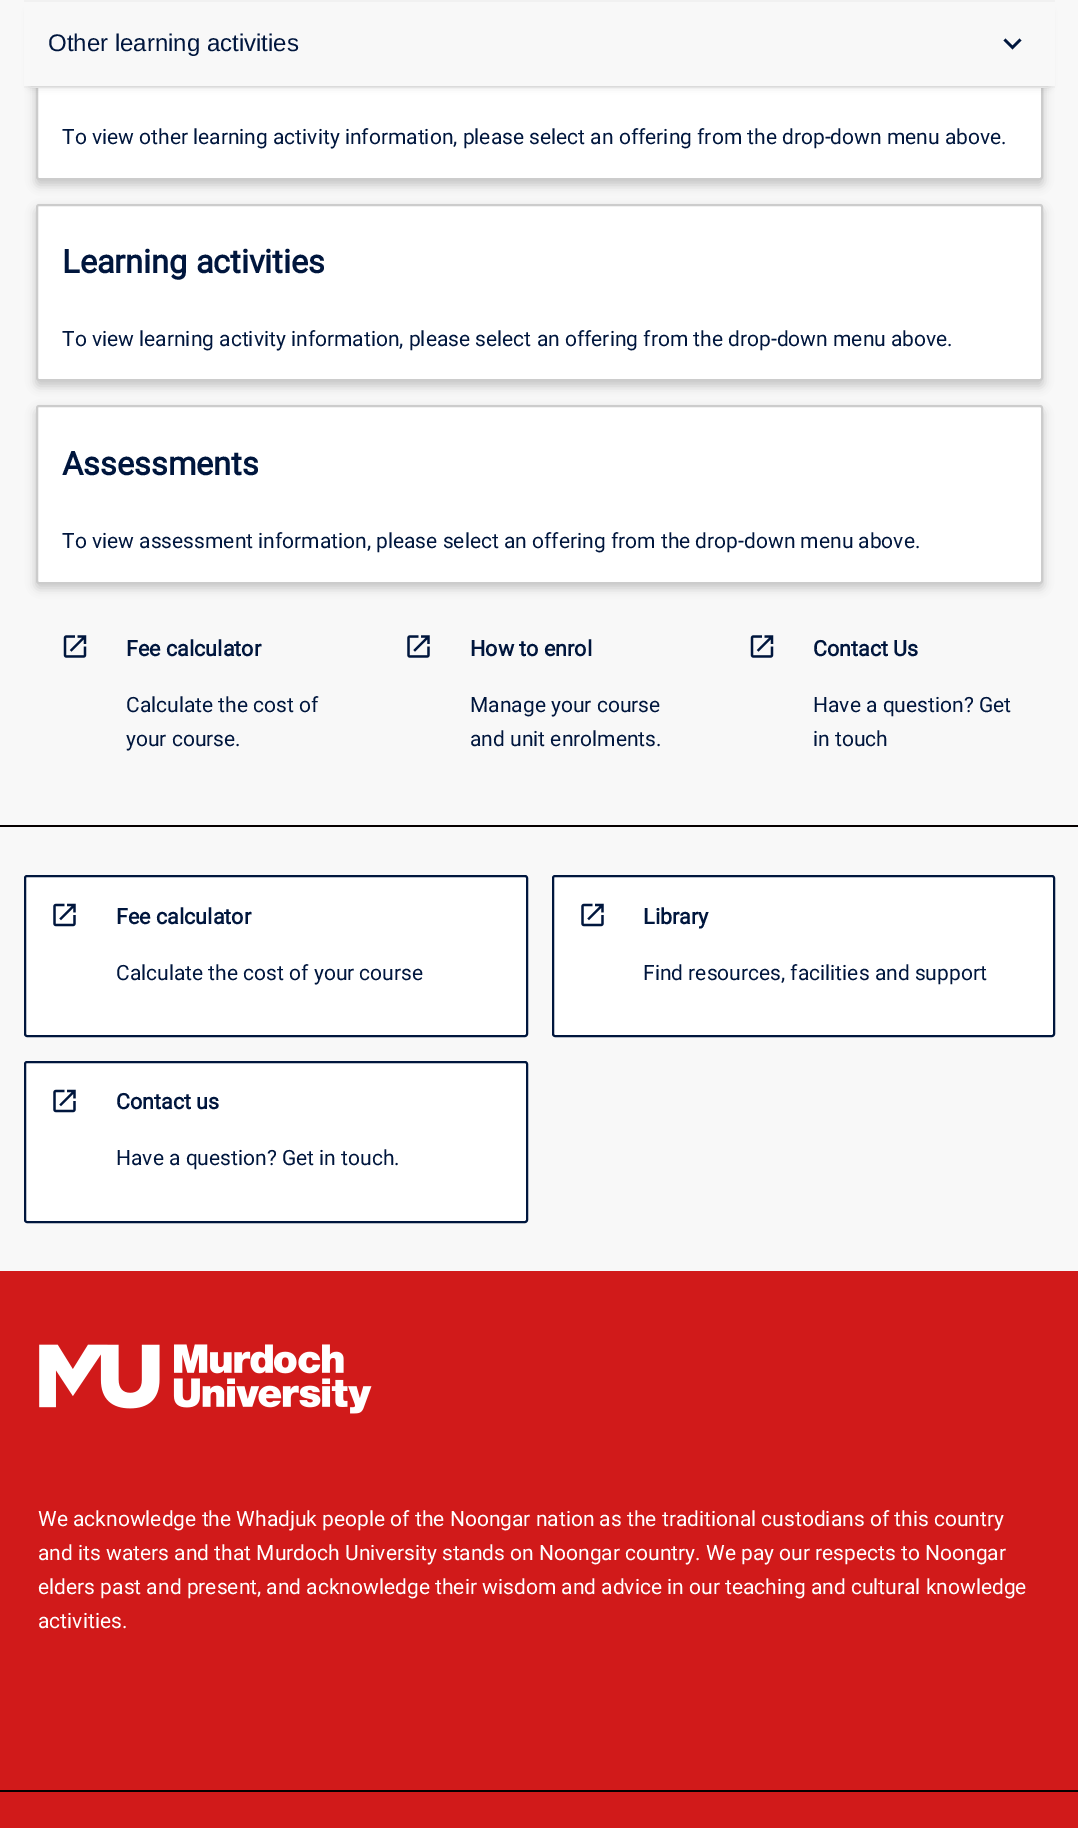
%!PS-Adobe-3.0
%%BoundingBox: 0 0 1078 1828
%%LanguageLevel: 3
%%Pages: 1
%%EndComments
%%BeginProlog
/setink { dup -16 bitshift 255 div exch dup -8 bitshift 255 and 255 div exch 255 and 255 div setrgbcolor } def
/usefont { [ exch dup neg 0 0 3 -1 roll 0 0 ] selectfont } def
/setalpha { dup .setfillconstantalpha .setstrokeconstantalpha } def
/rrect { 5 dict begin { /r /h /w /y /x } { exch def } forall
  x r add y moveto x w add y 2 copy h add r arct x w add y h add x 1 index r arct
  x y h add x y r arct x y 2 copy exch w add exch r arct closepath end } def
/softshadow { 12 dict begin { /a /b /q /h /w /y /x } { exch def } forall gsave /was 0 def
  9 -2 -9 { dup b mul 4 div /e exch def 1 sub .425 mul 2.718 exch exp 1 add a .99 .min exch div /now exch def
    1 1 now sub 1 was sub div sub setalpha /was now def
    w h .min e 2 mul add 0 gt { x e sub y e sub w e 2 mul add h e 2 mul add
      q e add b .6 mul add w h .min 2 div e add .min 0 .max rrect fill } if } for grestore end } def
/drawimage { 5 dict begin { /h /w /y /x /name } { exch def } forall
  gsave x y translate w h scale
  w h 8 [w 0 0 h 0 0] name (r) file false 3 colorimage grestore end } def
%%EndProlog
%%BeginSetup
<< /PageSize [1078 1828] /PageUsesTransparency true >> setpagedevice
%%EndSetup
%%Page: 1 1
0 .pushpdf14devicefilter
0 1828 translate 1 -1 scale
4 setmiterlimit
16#F8F8F8 setink
0 0 1078 1828 rectfill
16#000000 setink
36 6 1007 179 3 5 0.2 softshadow
16#FFFFFF setink
37 3 1005 176 2 rrect gsave fill grestore
16#CCCCCC setink
2 setlinewidth
stroke
16#F1F1F1 setink
24 86 1031 2 rectfill
16#000000 setink
30 12 1019 74 0 4 0.18 softshadow
16#F8F8F8 setink
24 2 1031 84 rectfill
16#F1F1F1 setink
24 0 1031 2 rectfill
/LiberationSans-Regular 24 usefont
16#00163D setink
48 51 moveto (Other learning activities) show
1005.5 38.5 moveto 1012.5 45.5 lineto 1019.5 38.5 lineto 1021.5 40.5 lineto 1012.5 49.5 lineto 1003.5 40.5 lineto closepath fill
/Roboto-Regular 21 usefont
62 144 moveto (To view other learning activity information, please select an offering from the drop-down menu above.) show
16#000000 setink
36 209 1007 177 3 5 0.2 softshadow
16#FFFFFF setink
37 205 1005 175 2 rrect gsave fill grestore
16#CCCCCC setink
stroke
/Roboto-Bold 32.5 usefont
16#00163D setink
62 273 moveto (Learning activities) show
/Roboto-Regular 21 usefont
62 346 moveto (To view learning activity information, please select an offering from the drop-down menu above.) show
16#000000 setink
36 410 1007 178 3 5 0.2 softshadow
16#FFFFFF setink
37 406 1005 177 2 rrect gsave fill grestore
16#CCCCCC setink
stroke
/Roboto-Bold 32.5 usefont
16#00163D setink
62 475 moveto (Assessments) show
/Roboto-Regular 21 usefont
62 548 moveto (To view assessment information, please select an offering from the drop-down menu above.) show
(img1.raw) 63 635 24 23 drawimage
/Roboto-Bold 21.5 usefont
126 656 moveto (Fee calculator) show
/Roboto-Regular 21 usefont
126 712 moveto (Calculate the cost of) show
126 746 moveto (your course.) show
(img2.raw) 407 635 23 23 drawimage
/Roboto-Bold 21.5 usefont
470 656 moveto (How to enrol) show
/Roboto-Regular 21 usefont
470 712 moveto (Manage your course) show
470 746 moveto (and unit enrolments.) show
(img1.raw) 750 635 24 23 drawimage
/Roboto-Bold 21.5 usefont
813 656 moveto (Contact Us) show
/Roboto-Regular 21 usefont
813 712 moveto (Have a question? Get) show
813 746 moveto (in touch) show
16#050000 setink
0 825 1078 2 rectfill
16#FFFFFF setink
25 876 502 160 2 rrect gsave fill grestore
16#00163D setink
stroke
(img3.raw) 53 903 23 24 drawimage
/Roboto-Bold 21.5 usefont
116 924 moveto (Fee calculator) show
/Roboto-Regular 21 usefont
116 980 moveto (Calculate the cost of your course) show
16#FFFFFF setink
553 876 501 160 2 rrect gsave fill grestore
16#00163D setink
stroke
(img3.raw) 581 903 23 24 drawimage
/Roboto-Bold 21.5 usefont
643 924 moveto (Library) show
/Roboto-Regular 21 usefont
643 980 moveto (Find resources, facilities and support) show
16#FFFFFF setink
25 1062 502 160 2 rrect gsave fill grestore
16#00163D setink
stroke
(img3.raw) 53 1089 23 24 drawimage
/Roboto-Bold 21.5 usefont
116 1109 moveto (Contact us) show
/Roboto-Regular 21 usefont
116 1165 moveto (Have a question? Get in touch.) show
16#D11A1A setink
0 1271 1078 557 rectfill
(img4.raw) 39 1344 333 70 drawimage
16#FFFFFF setink
[
    [(We acknowledge the Whadjuk people of the Noongar nation as the traditional custodians of this country) 38 1526]
    [(and its waters and that Murdoch University stands on Noongar country. We pay our respects to Noongar) 38 1560]
    [(elders past and present, and acknowledge their wisdom and advice in our teaching and cultural knowledge) 38 1594]
    [(activities.) 38 1628]
] { aload pop moveto show } forall
16#050000 setink
0 1790 1078 2 rectfill
.poppdf14devicefilter showpage
%%EOF
